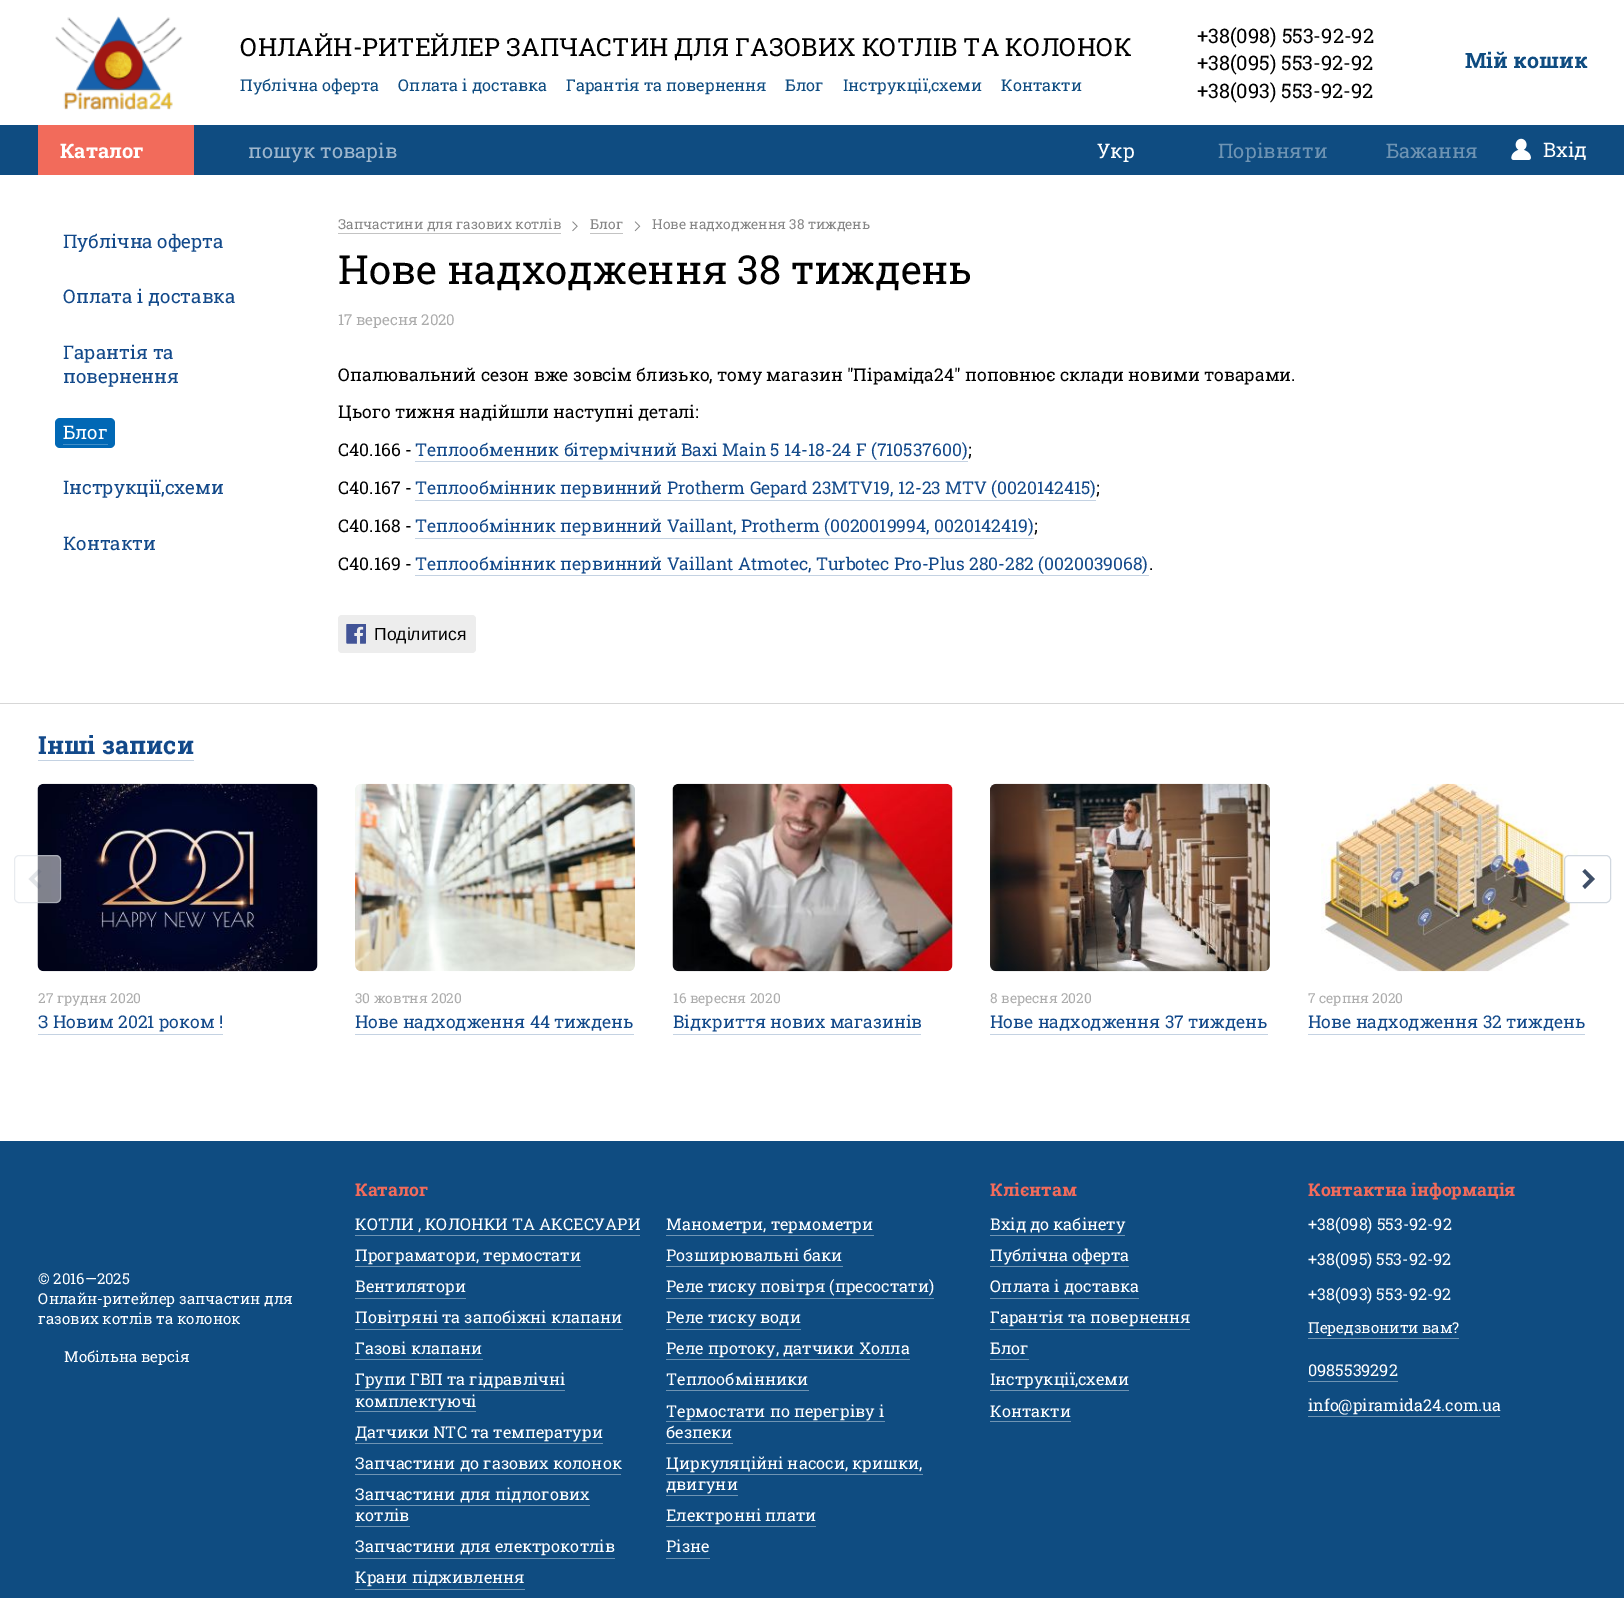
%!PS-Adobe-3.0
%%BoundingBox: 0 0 1624 1598
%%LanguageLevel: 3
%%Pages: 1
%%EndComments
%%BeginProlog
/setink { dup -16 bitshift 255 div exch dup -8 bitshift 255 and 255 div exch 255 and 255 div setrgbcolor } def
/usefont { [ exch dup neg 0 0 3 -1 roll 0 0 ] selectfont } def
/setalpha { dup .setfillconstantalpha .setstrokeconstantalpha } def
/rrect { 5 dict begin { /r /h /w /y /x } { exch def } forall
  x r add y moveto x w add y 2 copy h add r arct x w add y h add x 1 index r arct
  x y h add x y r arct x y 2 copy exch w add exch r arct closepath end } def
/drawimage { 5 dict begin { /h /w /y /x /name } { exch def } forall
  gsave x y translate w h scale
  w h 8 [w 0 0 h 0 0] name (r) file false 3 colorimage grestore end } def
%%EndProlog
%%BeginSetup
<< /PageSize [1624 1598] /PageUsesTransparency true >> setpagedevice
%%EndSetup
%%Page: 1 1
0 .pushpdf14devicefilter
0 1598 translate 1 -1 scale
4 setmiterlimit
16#FFFFFF setink
0 0 1624 1598 rectfill
(img1.raw) 55 16 128 94 drawimage
/RobotoSlab-Regular 25 usefont
16#000000 setink
240 56 moveto (ОНЛАЙН-РИТЕЙЛЕР ЗАПЧАСТИН ДЛЯ ГАЗОВИХ КОТЛІВ ТА КОЛОНОК) show
/RobotoSlab-Regular 16.25 usefont
16#0F4C81 setink
[
    [(Публічна оферта) 240 91]
    [(Оплата і доставка) 398 91]
    [(Гарантія та повернення) 566 91]
    [(Блог) 785 91]
    [(Інструкції,схеми) 843 91]
    [(Контакти) 1001 91]
] { aload pop moveto show } forall
/RobotoSlab-Regular 20 usefont
16#000000 setink
[
    [(+38\(098\) 553-92-92) 1197 43]
    [(+38\(095\) 553-92-92) 1197 70]
    [(+38\(093\) 553-92-92) 1197 98]
] { aload pop moveto show } forall
/RobotoSlab-Bold 21.25 usefont
16#0F4C81 setink
1465 68 moveto (Мій кошик) show
0 125 1624 50 rectfill
16#F26B5B setink
38 125 156 50 rectfill
/RobotoSlab-Bold 20 usefont
16#FFFFFF setink
60 158 moveto (Каталог) show
/RobotoSlab-Regular 20 usefont
16#9FB7CD setink
248 158 moveto (пошук товарів) show
16#FFFFFF setink
1097 158 moveto (Укр) show
16#6F94B3 setink
1218 158 moveto (Порівняти) show
1386 158 moveto (Бажання) show
(img2.raw) 1511 138 20 22 drawimage
16#FFFFFF setink
1543 157 moveto (Вхід) show
/RobotoSlab-Regular 18.75 usefont
16#12498A setink
[
    [(Публічна оферта) 63 248]
    [(Оплата і доставка) 63 303]
    [(Гарантія та) 63 359]
    [(повернення) 63 383]
] { aload pop moveto show } forall
16#0168B5 setink
55 418 60 30 5 rrect fill
16#FFFFFF setink
63 439 moveto (Блог) show
16#418EC8 setink
63 444 45 1 rectfill
16#12498A setink
63 494 moveto (Інструкції,схеми) show
63 550 moveto (Контакти) show
/RobotoSlab-Regular 13.75 usefont
16#868686 setink
338 229 moveto (Запчастини для газових котлів) show
16#C3C3C3 setink
338 233 223 1 rectfill
(img3.raw) 572 221 6 11 drawimage
16#868686 setink
590 229 moveto (Блог) show
16#C3C3C3 setink
590 233 33 1 rectfill
(img4.raw) 634 221 7 11 drawimage
16#868686 setink
652 229 moveto (Нове надходження 38 тиждень) show
/RobotoSlab-Regular 40 usefont
16#000000 setink
338 284 moveto (Нове надходження 38 тиждень) show
/RobotoSlab-Regular 15 usefont
16#ACACAC setink
338 325 moveto (17 вересня 2020) show
/RobotoSlab-Regular 17.5 usefont
16#000000 setink
[
    [(Опалювальний сезон вже зовсім близько, тому магазин "Піраміда24" поповнює склади новими товарами.) 338 381]
    [(Цього тижня надійшли наступні деталі:) 338 418]
    [(С40.166 -) 338 456]
] { aload pop moveto show } forall
16#12498A setink
415 456 moveto (Теплообменник бітермічний Baxi Main 5 14-18-24 F \(710537600\)) show
16#C4D2E2 setink
415 461 553 1 rectfill
16#000000 setink
968 456 moveto (;) show
338 494 moveto (С40.167 -) show
16#12498A setink
415 494 moveto (Теплообмінник первинний Protherm Gepard 23MTV19, 12-23 MTV \(0020142415\)) show
16#C4D2E2 setink
415 500 681 1 rectfill
16#000000 setink
1096 494 moveto (;) show
338 532 moveto (С40.168 -) show
16#12498A setink
415 532 moveto (Теплообмінник первинний Vaillant, Protherm \(0020019994, 0020142419\)) show
16#C4D2E2 setink
415 538 619 1 rectfill
16#000000 setink
1034 532 moveto (;) show
338 570 moveto (С40.169 -) show
16#12498A setink
415 570 moveto (Теплообмінник первинний Vaillant Atmotec, Turbotec Pro-Plus 280-282 \(0020039068\)) show
16#C4D2E2 setink
415 575 734 1 rectfill
16#000000 setink
1149 570 moveto (.) show
16#EDEDED setink
338 615 138 38 4 rrect fill
(img5.raw) 346 624 20 20 drawimage
/LiberationSans-Regular 17.5 usefont
16#000000 setink
374 640 moveto (Поділитися) show
16#D7D7D7 setink
0 703 1624 1 rectfill
/RobotoSlab-Bold 25 usefont
16#12498A setink
38 754 moveto (Інші записи) show
16#C4D2E2 setink
38 760 156 1 rectfill
(img6.raw) 37 783 281 189 drawimage
0.5 setalpha
16#FFFFFF setink
14 855 47 48 5 rrect fill
16#D1D8E0 setink
14.5 855.5 46 47 4.5 rrect stroke
0.15 setalpha
16#3F4F68 setink
38.5 869 moveto 41.5 871.5 lineto 34 879 lineto 41.5 886 lineto 38.5 889 lineto 28.5 879 lineto closepath fill
1 setalpha
(img10.raw) 1321 783 257 189 drawimage
16#FFFFFF setink
1564.5 855.5 46 47 4.5 rrect gsave fill grestore
16#D1D8E0 setink
stroke
16#3F4F68 setink
1585 869 moveto 1582.5 871.5 lineto 1589.5 879 lineto 1582.5 886 lineto 1585 889 lineto 1595 879 lineto closepath fill
/RobotoSlab-Regular 13.75 usefont
16#ACACAC setink
38 1003 moveto (27 грудня 2020) show
/RobotoSlab-Regular 17.5 usefont
16#12498A setink
38 1028 moveto (З Новим 2021 роком !) show
16#C4D2E2 setink
38 1034 185 1 rectfill
(img7.raw) 355 783 280 189 drawimage
/RobotoSlab-Regular 13.75 usefont
16#ACACAC setink
355 1003 moveto (30 жовтня 2020) show
/RobotoSlab-Regular 17.5 usefont
16#12498A setink
355 1028 moveto (Нове надходження 44 тиждень) show
16#C4D2E2 setink
355 1034 279 1 rectfill
(img8.raw) 672 783 281 189 drawimage
/RobotoSlab-Regular 13.75 usefont
16#ACACAC setink
673 1003 moveto (16 вересня 2020) show
/RobotoSlab-Regular 17.5 usefont
16#12498A setink
673 1028 moveto (Відкриття нових магазинів) show
16#C4D2E2 setink
673 1034 248 1 rectfill
(img9.raw) 990 783 280 189 drawimage
/RobotoSlab-Regular 13.75 usefont
16#ACACAC setink
990 1003 moveto (8 вересня 2020) show
/RobotoSlab-Regular 17.5 usefont
16#12498A setink
990 1028 moveto (Нове надходження 37 тиждень) show
16#C4D2E2 setink
990 1034 278 1 rectfill
/RobotoSlab-Regular 13.75 usefont
16#ACACAC setink
1308 1003 moveto (7 серпня 2020) show
/RobotoSlab-Regular 17.5 usefont
16#12498A setink
1308 1028 moveto (Нове надходження 32 тиждень) show
16#C4D2E2 setink
1308 1034 277 1 rectfill
16#0F4C81 setink
0 1141 1624 457 rectfill
/RobotoSlab-Regular 15 usefont
16#FFFFFF setink
[
    [(© 2016—2025) 38 1284]
    [(Онлайн-ритейлер запчастин для) 38 1304]
    [(газових котлів та колонок) 38 1324]
    [(Мобільна версія) 64 1362]
] { aload pop moveto show } forall
/RobotoSlab-Bold 17.5 usefont
16#F26B5B setink
355 1196 moveto (Каталог) show
/RobotoSlab-Regular 16.25 usefont
16#FFFFFF setink
355 1230 moveto (КОТЛИ , КОЛОНКИ ТА АКСЕСУАРИ) show
16#6F94B3 setink
355 1235 285 1 rectfill
16#FFFFFF setink
666 1230 moveto (Манометри, термометри) show
16#6F94B3 setink
666 1235 208 1 rectfill
16#FFFFFF setink
355 1261 moveto (Програматори, термостати) show
16#6F94B3 setink
355 1266 226 1 rectfill
16#FFFFFF setink
666 1261 moveto (Розширювальні баки) show
16#6F94B3 setink
666 1266 177 1 rectfill
16#FFFFFF setink
355 1292 moveto (Вентилятори) show
16#6F94B3 setink
355 1298 111 1 rectfill
16#FFFFFF setink
666 1292 moveto (Реле тиску повітря \(пресостати\)) show
16#6F94B3 setink
666 1298 268 1 rectfill
16#FFFFFF setink
355 1323 moveto (Повітряні та запобіжні клапани) show
16#6F94B3 setink
355 1329 268 1 rectfill
16#FFFFFF setink
666 1323 moveto (Реле тиску води) show
16#6F94B3 setink
666 1329 135 1 rectfill
16#FFFFFF setink
355 1354 moveto (Газові клапани) show
16#6F94B3 setink
355 1359 128 1 rectfill
16#FFFFFF setink
666 1354 moveto (Реле протоку, датчики Холла) show
16#6F94B3 setink
666 1359 244 1 rectfill
16#FFFFFF setink
355 1385 moveto (Групи ГВП та гідравлічні) show
16#6F94B3 setink
355 1390 210 1 rectfill
16#FFFFFF setink
355 1407 moveto (комплектуючі) show
16#6F94B3 setink
355 1411 121 1 rectfill
16#FFFFFF setink
666 1385 moveto (Теплообмінники) show
16#6F94B3 setink
666 1390 143 1 rectfill
16#FFFFFF setink
355 1438 moveto (Датчики NTC та температури) show
16#6F94B3 setink
355 1443 248 1 rectfill
16#FFFFFF setink
666 1417 moveto (Термостати по перегріву і) show
16#6F94B3 setink
666 1421 219 1 rectfill
16#FFFFFF setink
666 1438 moveto (безпеки) show
16#6F94B3 setink
666 1443 67 1 rectfill
16#FFFFFF setink
355 1469 moveto (Запчастини до газових колонок) show
16#6F94B3 setink
355 1474 266 1 rectfill
16#FFFFFF setink
666 1469 moveto (Циркуляційні насоси, кришки,) show
16#6F94B3 setink
666 1474 257 1 rectfill
16#FFFFFF setink
666 1490 moveto (двигуни) show
16#6F94B3 setink
666 1495 72 1 rectfill
16#FFFFFF setink
355 1500 moveto (Запчастини для підлогових) show
355 1521 moveto (котлів) show
16#6F94B3 setink
355 1505 235 1 rectfill
355 1526 55 1 rectfill
16#FFFFFF setink
666 1521 moveto (Електронні плати) show
16#6F94B3 setink
666 1526 150 1 rectfill
16#FFFFFF setink
355 1552 moveto (Запчастини для електрокотлів) show
16#6F94B3 setink
355 1558 260 1 rectfill
16#FFFFFF setink
666 1552 moveto (Різне) show
16#6F94B3 setink
666 1558 44 1 rectfill
16#FFFFFF setink
355 1583 moveto (Крани підживлення) show
16#6F94B3 setink
355 1589 170 1 rectfill
/RobotoSlab-Bold 17.5 usefont
16#F26B5B setink
990 1196 moveto (Клієнтам) show
/RobotoSlab-Regular 16.25 usefont
16#FFFFFF setink
990 1230 moveto (Вхід до кабінету) show
16#6F94B3 setink
990 1235 135 1 rectfill
16#FFFFFF setink
990 1261 moveto (Публічна оферта) show
16#6F94B3 setink
990 1266 139 1 rectfill
16#FFFFFF setink
990 1292 moveto (Оплата і доставка) show
16#6F94B3 setink
990 1298 149 1 rectfill
16#FFFFFF setink
990 1323 moveto (Гарантія та повернення) show
16#6F94B3 setink
990 1329 200 1 rectfill
16#FFFFFF setink
990 1354 moveto (Блог) show
16#6F94B3 setink
990 1359 39 1 rectfill
16#FFFFFF setink
990 1385 moveto (Інструкції,схеми) show
16#6F94B3 setink
990 1390 139 1 rectfill
16#FFFFFF setink
990 1417 moveto (Контакти) show
16#6F94B3 setink
990 1421 81 1 rectfill
/RobotoSlab-Bold 17.5 usefont
16#F26B5B setink
1308 1196 moveto (Контактна інформація) show
/RobotoSlab-Regular 16.25 usefont
16#FFFFFF setink
[
    [(+38\(098\) 553-92-92) 1308 1230]
    [(+38\(095\) 553-92-92) 1308 1265]
    [(+38\(093\) 553-92-92) 1308 1300]
] { aload pop moveto show } forall
/RobotoSlab-Regular 15 usefont
1308 1333 moveto (Передзвонити вам?) show
16#6F94B3 setink
1308 1338 151 1 rectfill
/RobotoSlab-Regular 16.25 usefont
16#FFFFFF setink
1308 1376 moveto (0985539292) show
16#6F94B3 setink
1308 1381 90 1 rectfill
16#FFFFFF setink
1308 1411 moveto (info@piramida24.com.ua) show
16#6F94B3 setink
1308 1416 192 1 rectfill
.poppdf14devicefilter showpage
%%EOF
